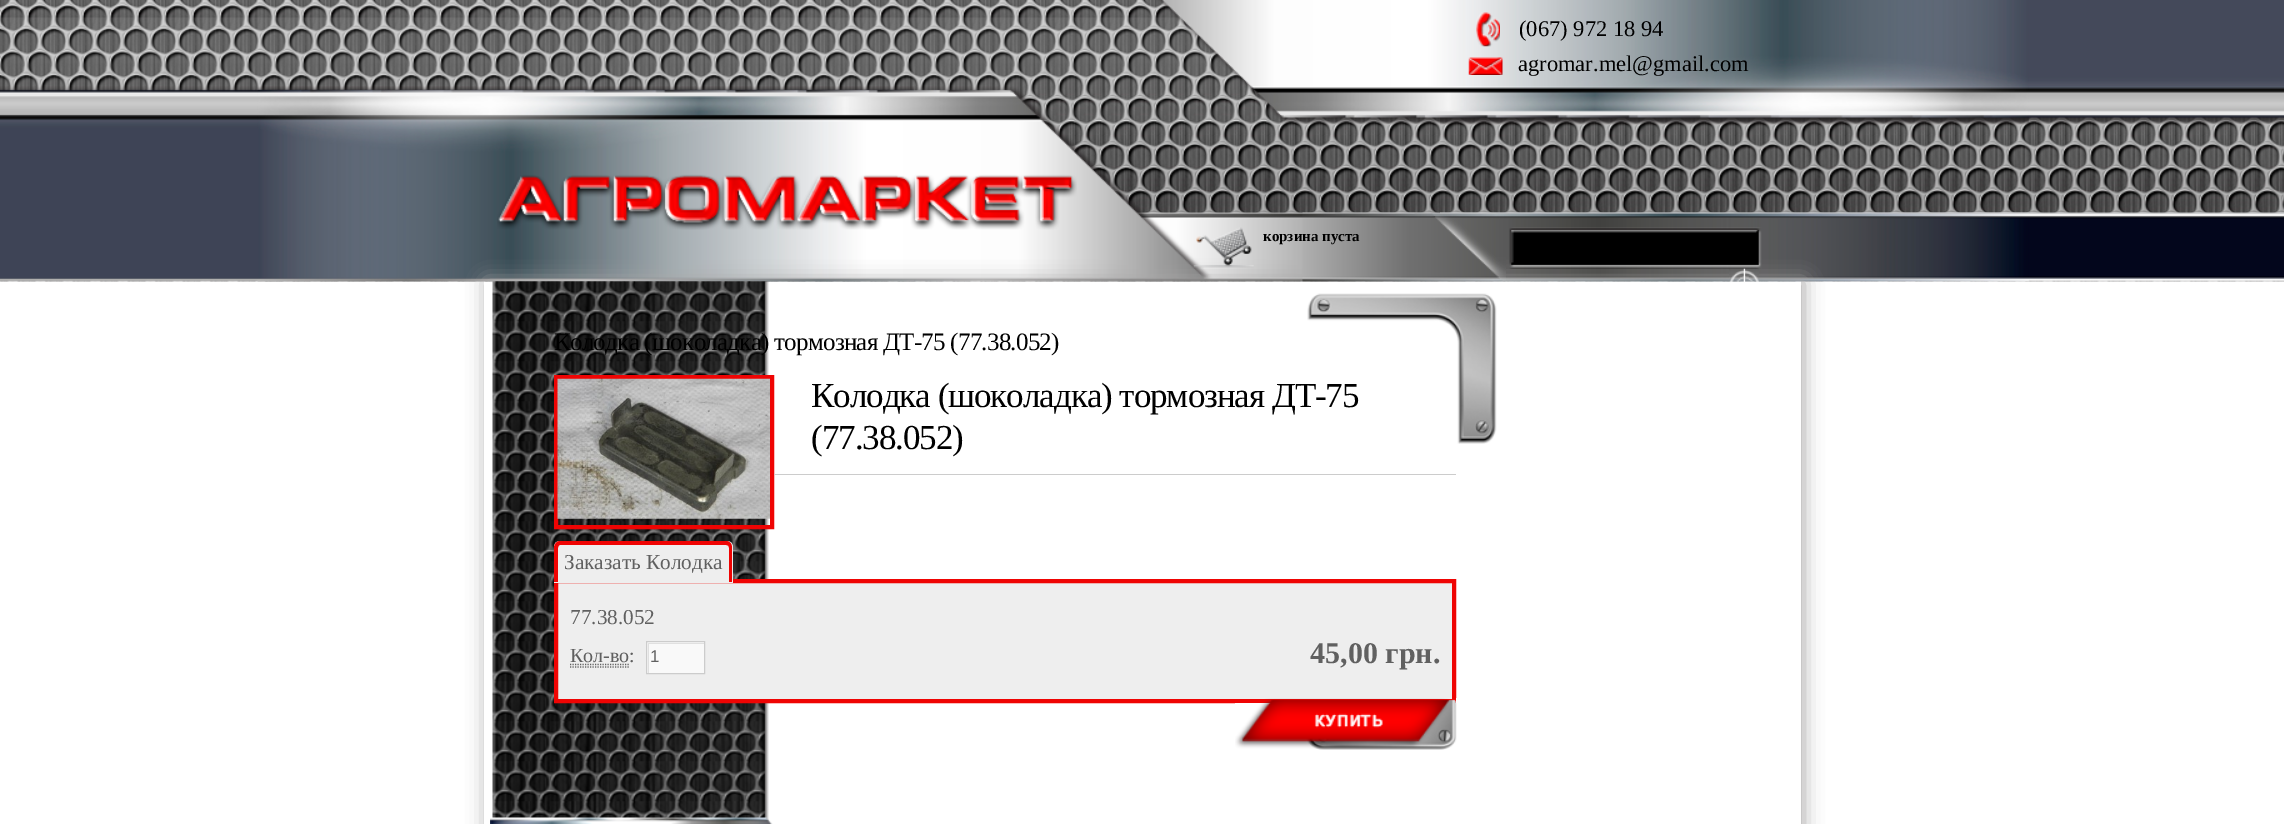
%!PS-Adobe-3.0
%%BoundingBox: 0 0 2284 824
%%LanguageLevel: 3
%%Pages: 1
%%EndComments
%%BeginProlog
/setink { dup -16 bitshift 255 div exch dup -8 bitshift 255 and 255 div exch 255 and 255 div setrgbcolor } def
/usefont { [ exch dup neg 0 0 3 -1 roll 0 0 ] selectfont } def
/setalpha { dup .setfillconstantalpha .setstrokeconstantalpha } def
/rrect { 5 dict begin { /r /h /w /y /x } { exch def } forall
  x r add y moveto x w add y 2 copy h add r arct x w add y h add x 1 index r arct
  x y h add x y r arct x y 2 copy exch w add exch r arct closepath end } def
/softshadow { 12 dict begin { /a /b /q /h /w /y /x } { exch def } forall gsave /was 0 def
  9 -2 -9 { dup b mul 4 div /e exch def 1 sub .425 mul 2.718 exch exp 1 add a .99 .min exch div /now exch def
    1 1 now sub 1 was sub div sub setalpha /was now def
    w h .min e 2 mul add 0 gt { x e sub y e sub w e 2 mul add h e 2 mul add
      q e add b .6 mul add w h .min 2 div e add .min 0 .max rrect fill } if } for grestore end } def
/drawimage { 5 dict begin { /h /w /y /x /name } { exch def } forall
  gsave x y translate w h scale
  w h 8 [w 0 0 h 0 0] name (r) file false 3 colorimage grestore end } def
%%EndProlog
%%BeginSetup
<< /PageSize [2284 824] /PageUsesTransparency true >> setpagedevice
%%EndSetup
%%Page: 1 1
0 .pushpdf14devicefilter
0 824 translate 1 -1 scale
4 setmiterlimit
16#FFFFFF setink
0 0 2284 824 rectfill
(img1.raw) 0 0 2284 282 drawimage
(img2.raw) 0 86 914 196 drawimage
(img16.raw) 1440 0 844 282 drawimage
(img3.raw) 257 0 1772 282 drawimage
(img4.raw) 1476 12 24 35 drawimage
/LiberationSerif-Regular 22.5 usefont
16#000000 setink
1519 36 moveto (\(067\) 972 18 94) show
(img5.raw) 1468 57 35 18 drawimage
1518 71 moveto (agromar.mel@gmail.com) show
(img6.raw) 497 174 580 56 drawimage
gsave
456 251 moveto 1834 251 lineto 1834 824 lineto 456 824 lineto closepath 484 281 moveto 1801 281 lineto 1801 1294 lineto 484 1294 lineto closepath eoclip newpath
16#A9A8A8 setink
486 281 1318 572 0 9.5 1 softshadow
grestore
(img7.raw) 1193 227 61 41 drawimage
(img8.raw) 1302 212 204 70 drawimage
/LiberationSerif-Bold 15 usefont
1263 241 moveto (корзина пуста) show
(img9.raw) 1509 227 253 42 drawimage
(img10.raw) 1729 268 30 14 drawimage
(img11.raw) 490 281 279 543 drawimage
(img12.raw) 1307 293 190 151 drawimage
/LiberationSerif-Regular 25 usefont
554 350 moveto -0.75 0 (Колодка \(шоколадка\) тормозная ДТ-75 \(77.38.052\)) ashow
16#EF0403 setink
4 setlinewidth
556 377 216 150 rectstroke
(img13.raw) 557 378 213 141 drawimage
16#CCCCCC setink
774 474 682 1 rectfill
/LiberationSerif-Regular 35 usefont
16#000000 setink
811 407 moveto -1.05 0 (Колодка \(шоколадка\) тормозная ДТ-75) ashow
811 449 moveto -1.05 0 (\(77.38.052\)) ashow
16#EEEEEE setink
556 581 moveto 1454 581 lineto 1454 701 lineto 556 701 lineto closepath gsave fill grestore
16#EF0403 setink
stroke
16#EEEEEE setink
560 541 moveto 727 541 lineto 730.5 541 733 543.5 733 547 curveto 733 583 lineto 554 583 lineto 554 547 lineto 554 543.5 556.5 541 560 541 curveto closepath fill
16#EF0403 setink
560 541 moveto 726 541 lineto 730 541 732 544 732 548 curveto 732 582 lineto 554 582 lineto 554 548 lineto 554 544 557 541 560 541 curveto closepath 560 545 moveto 726 545 lineto 728 545 729 546 729 548 curveto 729 582 lineto 558 582 lineto 558 548 lineto 558 546 559 545 560 545 curveto closepath eofill
/LiberationSerif-Regular 21.25 usefont
16#606060 setink
564 569 moveto (Заказать Колодка) show
570 624 moveto (77.38.052) show
/LiberationSerif-Bold 30 usefont
1310 663 moveto (45,00 грн.) show
/LiberationSerif-Regular 20 usefont
570 662 moveto (Кол-во:) show
16#666666 setink
1.2 setlinewidth
[1.25 1.25] 0 setdash
570 667 moveto 630 667 lineto stroke
16#606060 setink
570 664.5 moveto 629.5 664.5 lineto stroke
16#F9F9F9 setink
647 642 57 31 rectfill
gsave
648 643 56 30 rectclip
16#E0E0E0 setink
524 519 moveto 828 519 lineto 828 796 lineto 524 796 lineto closepath 649 644 moveto 705 644 lineto 705 674 lineto 649 674 lineto closepath eofill
grestore
16#CCCCCC setink
1 setlinewidth
[] 0 setdash
646.5 641.5 58 32 rectstroke
/LiberationSans-Regular 17 usefont
16#606060 setink
650 662 moveto (1) show
(img14.raw) 1235 698 222 52 drawimage
(img15.raw) 490 817 283 7 drawimage
.poppdf14devicefilter showpage
%%EOF
